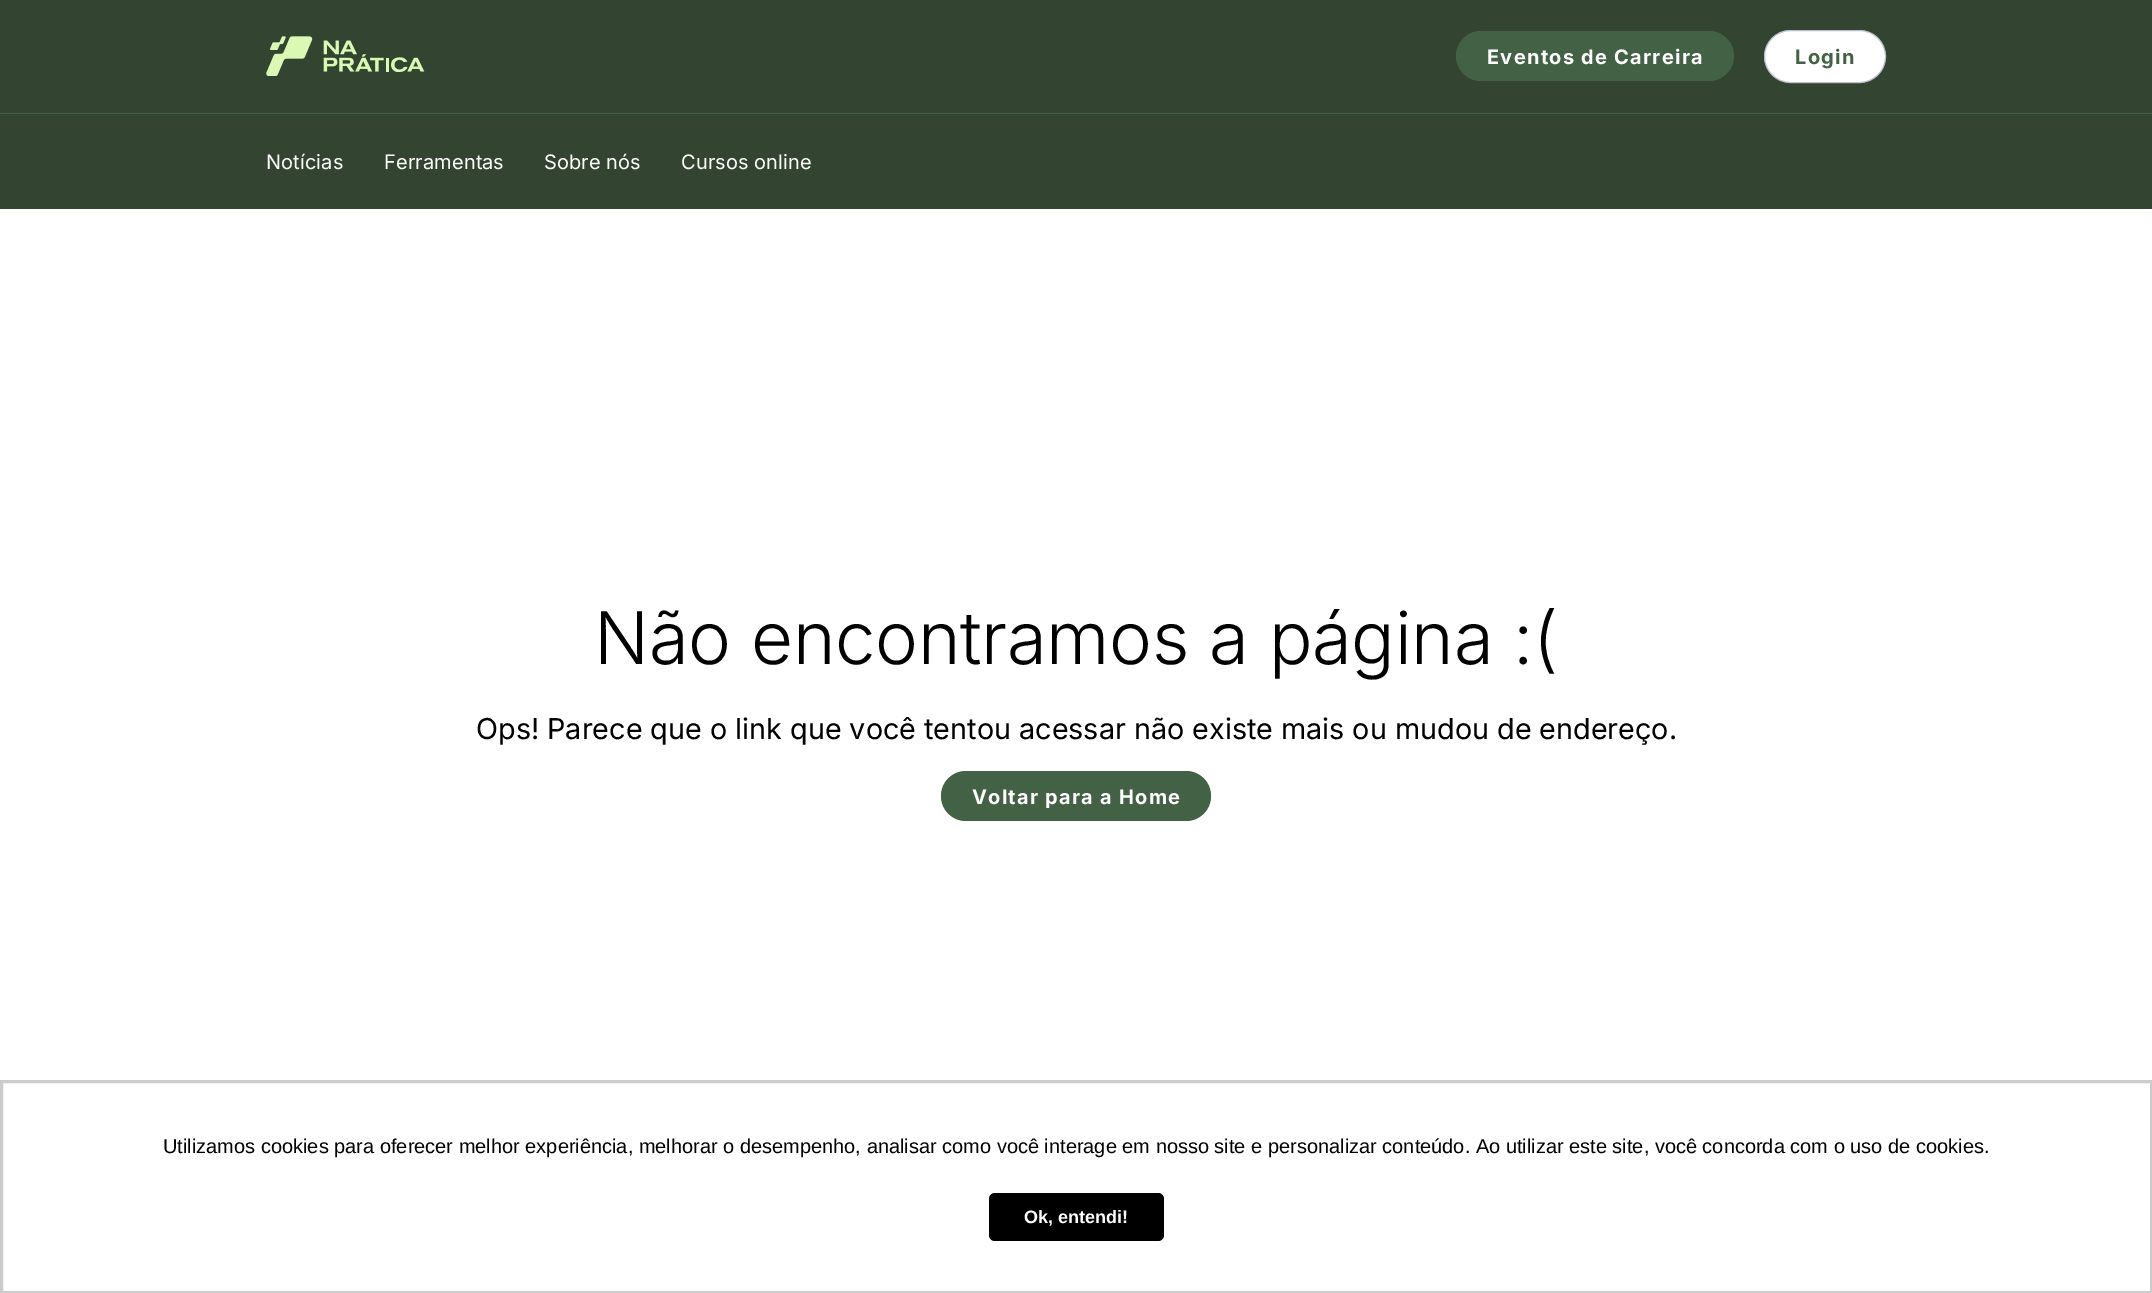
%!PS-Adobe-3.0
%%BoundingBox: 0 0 2152 1293
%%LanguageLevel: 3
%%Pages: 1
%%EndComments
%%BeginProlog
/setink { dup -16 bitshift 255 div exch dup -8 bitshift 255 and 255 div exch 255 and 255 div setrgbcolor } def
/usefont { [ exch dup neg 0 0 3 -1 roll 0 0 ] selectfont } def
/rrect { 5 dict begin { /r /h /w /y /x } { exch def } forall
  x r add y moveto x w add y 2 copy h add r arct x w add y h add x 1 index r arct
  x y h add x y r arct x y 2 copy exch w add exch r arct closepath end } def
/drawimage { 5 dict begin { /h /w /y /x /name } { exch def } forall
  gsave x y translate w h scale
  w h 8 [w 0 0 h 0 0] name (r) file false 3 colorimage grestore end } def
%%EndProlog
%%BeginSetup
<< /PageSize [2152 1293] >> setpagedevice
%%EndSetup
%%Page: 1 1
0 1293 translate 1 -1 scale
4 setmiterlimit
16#FFFFFF setink
0 0 2152 1293 rectfill
16#334530 setink
0 0 2152 209 rectfill
(img1.raw) 266 36 159 40 drawimage
16#436144 setink
1456 31 278 50 25 rrect fill
/Inter-Bold 20 usefont
16#FFFFFF setink
1487 64 moveto 1.25 0 (Eventos de Carreira) ashow
1764.5 30.5 121 52 26 rrect gsave fill grestore
16#BABED4 setink
stroke
16#436144 setink
1795 64 moveto 1.25 0 (Login) ashow
0 113 2152 1 rectfill
/Inter-Regular 20 usefont
16#FFFFFF setink
266 169 moveto 0.1 0 (Notícias) ashow
384 169 moveto 0.1 0 (Ferramentas) ashow
544 169 moveto 0.1 0 (Sobre nós) ashow
681 169 moveto 0.1 0 (Cursos online) ashow
/Inter-Light 72.5 usefont
16#000000 setink
594 664 moveto -0.35 0 (Não encontramos a página :\() ashow
/Inter-Regular 28.75 usefont
476 739 moveto (Ops! Parece que o link que você tentou acessar não existe mais ou mudou de endereço.) show
16#436144 setink
941 771 270 50 25 rrect fill
/Inter-Bold 20 usefont
16#FFFFFF setink
972 804 moveto 1.25 0 (Voltar para a Home) ashow
16#CCCCCC setink
3 setlinewidth
1.5 1081.5 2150 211 rectstroke
/LiberationSans-Regular 20 usefont
16#000000 setink
163 1153 moveto (Utilizamos cookies para oferecer melhor experiência, melhorar o desempenho, analisar como você interage em nosso site e personalizar conteúdo. Ao utilizar este site, você concorda com o uso de cookies.) show
989 1193 175 48 6 rrect fill
/LiberationSans-Bold 18 usefont
16#FFFFFF setink
1024 1223 moveto (Ok, entendi!) show
showpage
%%EOF
